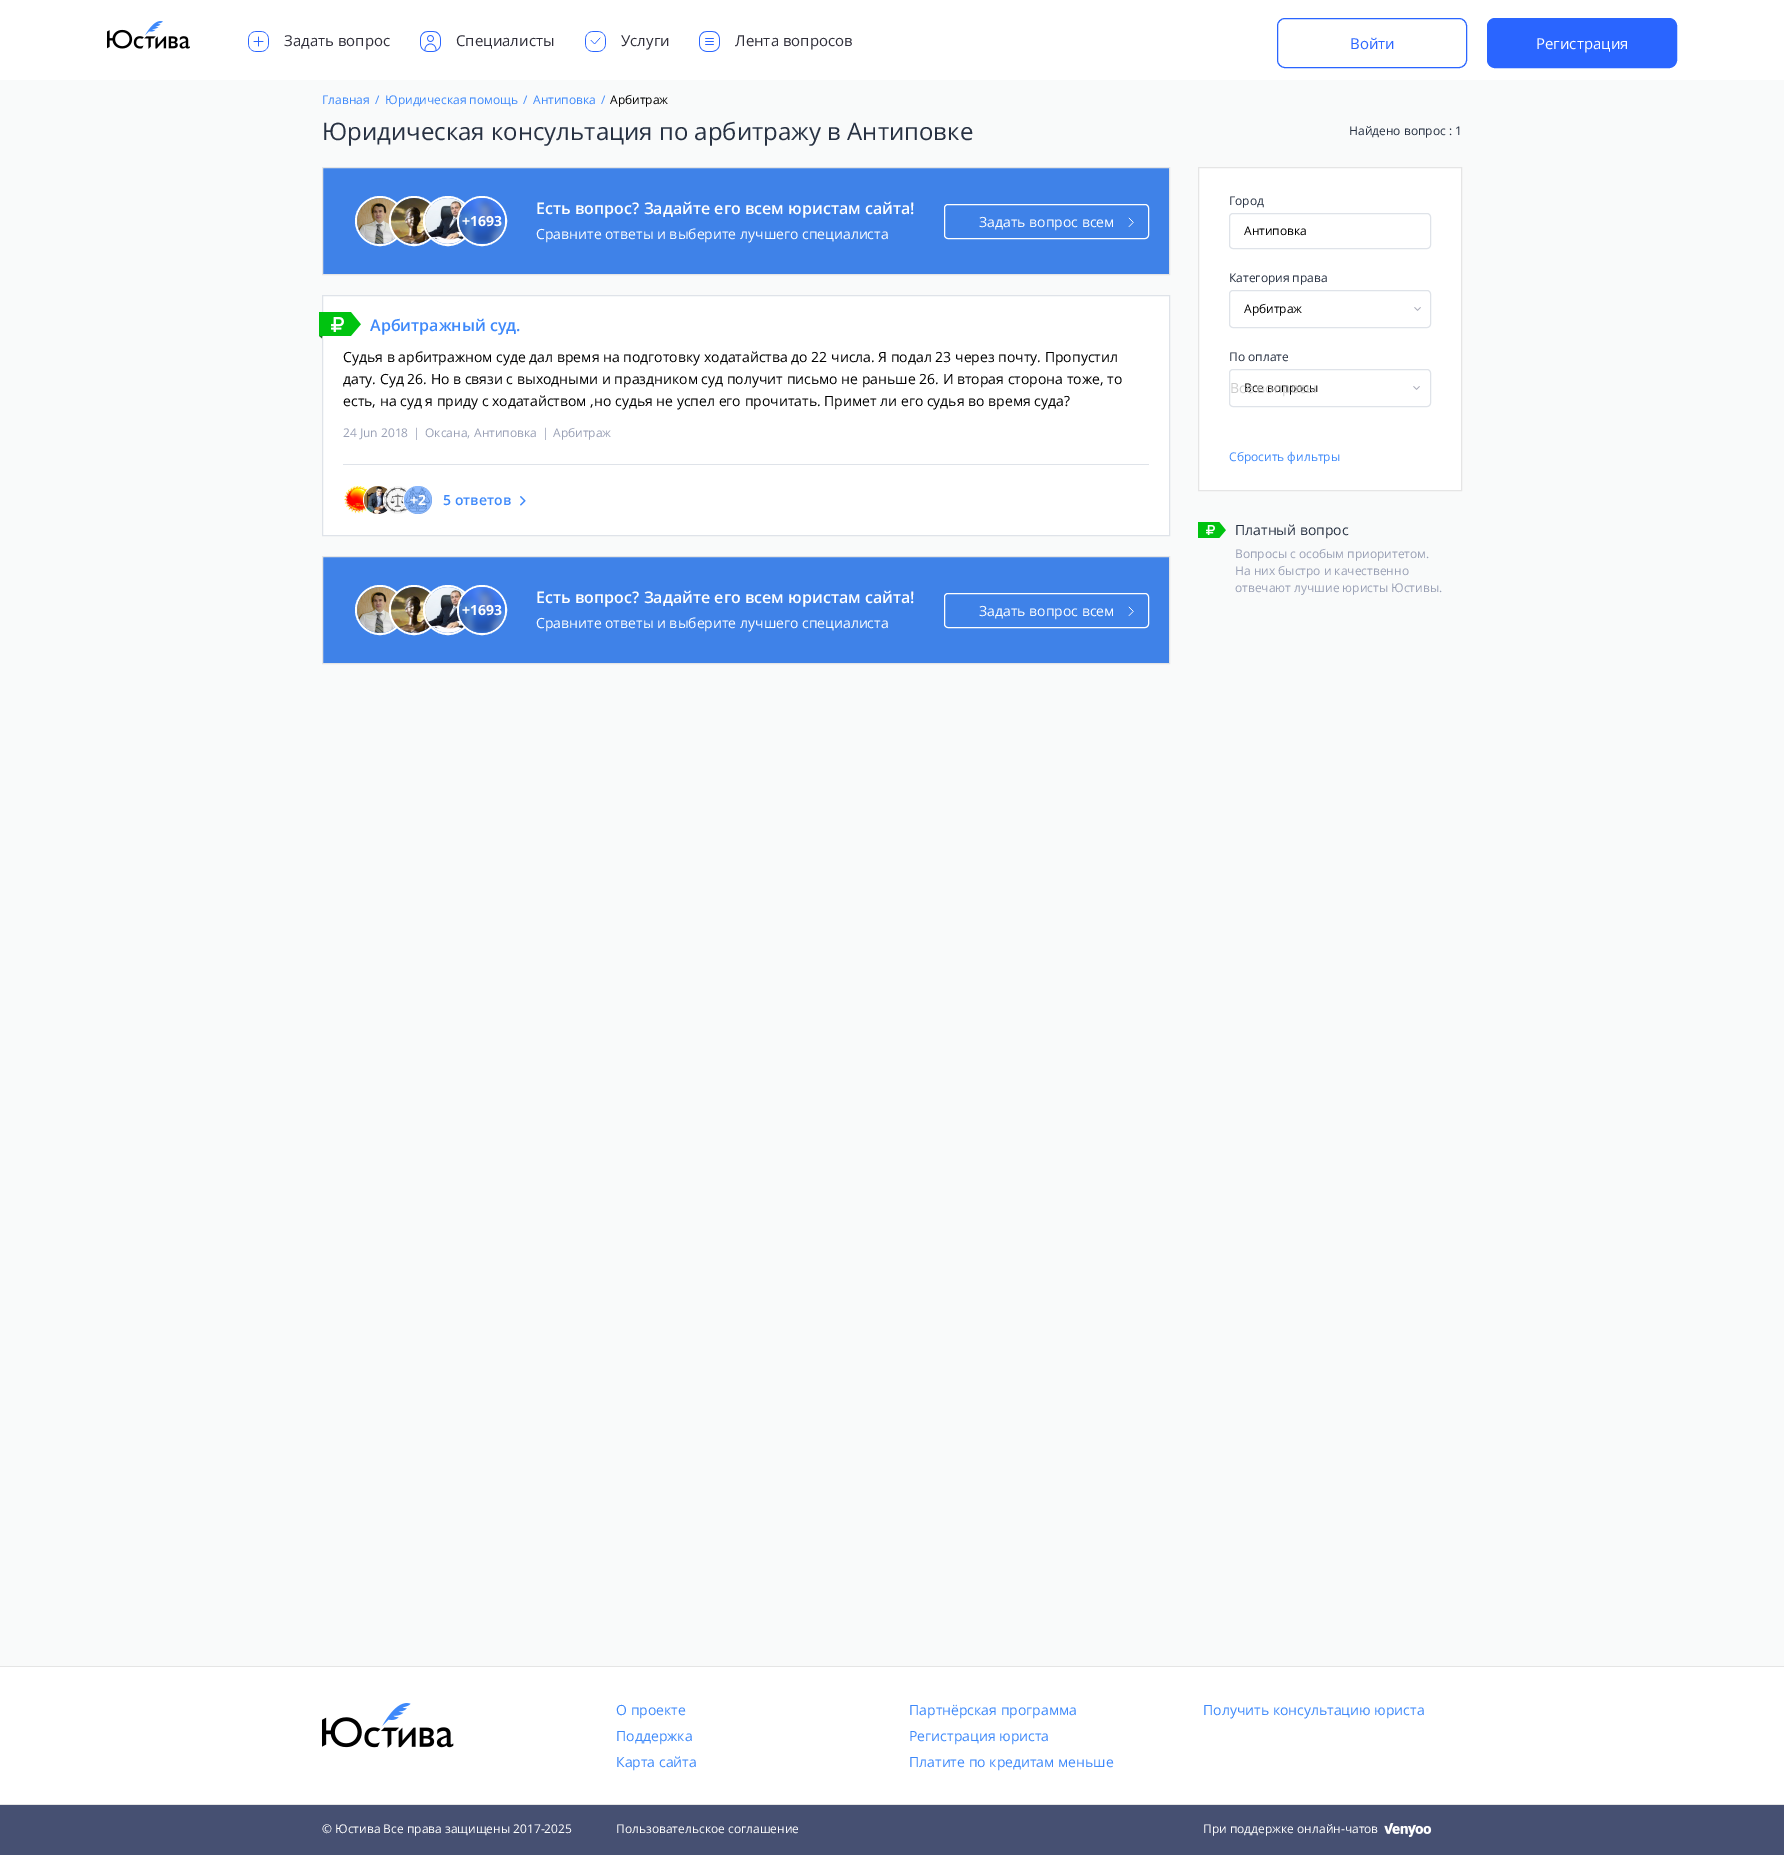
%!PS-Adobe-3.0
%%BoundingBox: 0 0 1784 1855
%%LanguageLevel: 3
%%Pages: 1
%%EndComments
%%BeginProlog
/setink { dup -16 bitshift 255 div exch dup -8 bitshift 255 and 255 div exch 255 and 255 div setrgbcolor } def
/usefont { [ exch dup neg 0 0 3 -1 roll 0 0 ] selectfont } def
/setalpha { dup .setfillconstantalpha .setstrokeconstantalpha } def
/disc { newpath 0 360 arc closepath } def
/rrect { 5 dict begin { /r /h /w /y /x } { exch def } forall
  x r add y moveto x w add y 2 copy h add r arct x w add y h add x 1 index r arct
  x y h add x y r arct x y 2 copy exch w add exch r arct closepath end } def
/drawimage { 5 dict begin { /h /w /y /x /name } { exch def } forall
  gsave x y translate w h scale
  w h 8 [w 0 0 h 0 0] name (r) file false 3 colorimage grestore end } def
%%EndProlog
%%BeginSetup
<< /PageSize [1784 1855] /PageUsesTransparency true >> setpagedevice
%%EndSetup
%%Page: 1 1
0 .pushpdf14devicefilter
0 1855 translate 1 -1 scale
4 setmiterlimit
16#F9FAFA setink
0 0 1784 1855 rectfill
16#FFFFFF setink
0 0 1784 80 rectfill
(img1.raw) 107 21 83 28 drawimage
(img2.raw) 248 31 21 21 drawimage
/OpenSans-Regular 15 usefont
16#2F2E39 setink
284 46 moveto (Задать вопрос) show
(img3.raw) 420 31 21 21 drawimage
456 46 moveto (Специалисты) show
(img4.raw) 585 31 21 21 drawimage
621 46 moveto (Услуги) show
(img5.raw) 699 31 21 21 drawimage
735 46 moveto (Лента вопросов) show
16#2A65FF setink
1277.5 18.5 189 49 7.5 rrect stroke
1350 49 moveto (Войти) show
1487.5 18.5 189 49 7.5 rrect gsave fill grestore
stroke
16#FFFFFF setink
1536 49 moveto (Регистрация) show
/OpenSans-Regular 12 usefont
16#3E89FA setink
[
    [(Главная) 322 104]
    [(/) 375 104]
    [(Юридическая помощь) 385 104]
    [(/) 523 104]
    [(Антиповка) 533 104]
    [(/) 601 104]
] { aload pop moveto show } forall
16#000000 setink
610 104 moveto (Арбитраж) show
/OpenSans-Regular 24 usefont
16#273142 setink
322 140 moveto (Юридическая консультация по арбитражу в Антиповке) show
/OpenSans-Regular 12 usefont
1349 135 moveto (Найдено вопрос : 1) show
16#3F82E8 setink
322.5 167.5 moveto 1169.5 167.5 lineto 1169.5 274.5 lineto 322.5 274.5 lineto closepath gsave fill grestore
16#E5E5E5 setink
stroke
16#FFFFFF setink
2 setlinewidth
380 221 24 disc stroke
(img6.raw) 357 198 41 46 drawimage
414 221 24 disc stroke
(img7.raw) 391 198 41 46 drawimage
448 221 24 disc stroke
(img8.raw) 425 198 41 46 drawimage
482 221 24 disc stroke
(img9.raw) 459 198 46 46 drawimage
0.6 setalpha
16#3E89FA setink
482 221 23 disc fill
/OpenSans-Bold 14 usefont
1 setalpha
16#FFFFFF setink
462 226 moveto (+1693) show
/OpenSans-SemiBold 16 usefont
536 214 moveto (Есть вопрос? Задайте его всем юристам сайта!) show
/OpenSans-Regular 14 usefont
536 239 moveto (Сравните ответы и выберите лучшего специалиста) show
1 setlinewidth
944.5 204.5 204 34 3.5 rrect stroke
979 227 moveto (Задать вопрос всем) show
(img10.raw) 1128 217 6 10 drawimage
322.5 295.5 moveto 1169.5 295.5 lineto 1169.5 535.5 lineto 322.5 535.5 lineto closepath gsave fill grestore
16#DFE3E9 setink
stroke
(img11.raw) 319 312 42 27 drawimage
/OpenSans-SemiBold 16 usefont
16#3E89FA setink
370 331 moveto (Арбитражный суд.) show
/OpenSans-Regular 14 usefont
16#000000 setink
[
    [(Судья в арбитражном суде дал время на подготовку ходатайства до 22 числа. Я подал 23 через почту. Пропустил) 343 362]
    [(дату. Суд 26. Но в связи с выходными и праздником суд получит письмо не раньше 26. И вторая сторона тоже, то) 343 384]
    [(есть, на суд я приду с ходатайством ,но судья не успел его прочитать. Примет ли его судья во время суда?) 343 406]
] { aload pop moveto show } forall
/OpenSans-Regular 12 usefont
16#99A0B5 setink
[
    [(24 Jun 2018) 343 437]
    [(|) 413 437]
    [(Оксана,) 425 437]
    [(Антиповка) 474 437]
    [(|) 542 437]
    [(Арбитраж) 553 437]
] { aload pop moveto show } forall
16#DFE3E9 setink
343 464 806 1 rectfill
(img12.raw) 344 486 25 28 drawimage
16#FFFFFF setink
378 500 14.5 disc stroke
(img13.raw) 364 486 25 28 drawimage
398 500 14.5 disc stroke
(img14.raw) 384 486 25 28 drawimage
418 500 14.5 disc stroke
(img15.raw) 404 486 28 28 drawimage
0.6 setalpha
16#3E89FA setink
418 500 14 disc fill
/OpenSans-Bold 14 usefont
1 setalpha
16#FFFFFF setink
410 505 moveto (+2) show
(img16.raw) 520 496 6 10 drawimage
/OpenSans-SemiBold 14 usefont
16#3E89FA setink
443 505 moveto (5 ответов) show
16#3F82E8 setink
322.5 556.5 moveto 1169.5 556.5 lineto 1169.5 663.5 lineto 322.5 663.5 lineto closepath gsave fill grestore
16#E5E5E5 setink
stroke
16#FFFFFF setink
2 setlinewidth
380 610 24 disc stroke
(img6.raw) 357 587 41 46 drawimage
414 610 24 disc stroke
(img7.raw) 391 587 41 46 drawimage
448 610 24 disc stroke
(img8.raw) 425 587 41 46 drawimage
482 610 24 disc stroke
(img9.raw) 459 587 46 46 drawimage
0.6 setalpha
16#3E89FA setink
482 610 23 disc fill
/OpenSans-Bold 14 usefont
1 setalpha
16#FFFFFF setink
462 615 moveto (+1693) show
/OpenSans-SemiBold 16 usefont
536 603 moveto (Есть вопрос? Задайте его всем юристам сайта!) show
/OpenSans-Regular 14 usefont
536 628 moveto (Сравните ответы и выберите лучшего специалиста) show
1 setlinewidth
944.5 593.5 204 34 3.5 rrect stroke
979 616 moveto (Задать вопрос всем) show
(img10.raw) 1128 606 6 10 drawimage
1198.5 167.5 moveto 1461.5 167.5 lineto 1461.5 490.5 lineto 1198.5 490.5 lineto closepath gsave fill grestore
16#E5E5E5 setink
stroke
/OpenSans-Regular 12 usefont
16#273142 setink
1229 205 moveto (Город) show
16#DFE3E9 setink
1229.5 213.5 201 35 3.5 rrect stroke
16#000000 setink
1244 235 moveto (Антиповка) show
16#273142 setink
1229 282 moveto (Категория права) show
16#DFE3E9 setink
1229.5 290.5 201 37 3.5 rrect stroke
16#000000 setink
1244 313 moveto (Арбитраж) show
(img17.raw) 1414 307 7 4 drawimage
16#273142 setink
1229 361 moveto (По оплате) show
16#DFE3E9 setink
1229.5 369.5 201 37 3.5 rrect stroke
16#000000 setink
1244 392 moveto (Все вопросы) show
/OpenSans-Regular 14 usefont
16#CCCCCC setink
1230 393 moveto (Все вопросы) show
(img17.raw) 1413 386 7 4 drawimage
/OpenSans-Regular 12 usefont
16#3E89FA setink
1229 461 moveto (Сбросить фильтры) show
(img18.raw) 1198 522 28 16 drawimage
/OpenSans-Regular 14 usefont
16#273142 setink
1235 535 moveto (Платный вопрос) show
/OpenSans-Regular 12 usefont
16#99A0B5 setink
[
    [(Вопросы с особым приоритетом.) 1235 558]
    [(На них быстро и качественно) 1235 575]
    [(отвечают лучшие юристы Юстивы.) 1235 592]
] { aload pop moveto show } forall
16#FFFFFF setink
0 1667 1784 137 rectfill
16#E5E5E5 setink
0 1666 1784 1 rectfill
(img19.raw) 322 1703 132 45 drawimage
/OpenSans-Regular 14 usefont
16#3E89FA setink
[
    [(О проекте) 616 1715]
    [(Поддержка) 616 1741]
    [(Карта сайта) 616 1767]
    [(Партнёрская программа) 909 1715]
    [(Регистрация юриста) 909 1741]
    [(Платите по кредитам меньше) 909 1767]
    [(Получить консультацию юриста) 1203 1715]
] { aload pop moveto show } forall
16#465072 setink
0 1805 1784 50 rectfill
16#E5E5E5 setink
0 1804 1784 1 rectfill
/OpenSans-Regular 12 usefont
16#FFFFFF setink
[
    [(© Юстива Все права защищены 2017-2025) 322 1833]
    [(Пользовательское соглашение) 616 1833]
    [(При поддержке онлайн-чатов) 1203 1833]
] { aload pop moveto show } forall
(img20.raw) 1384 1823 48 14 drawimage
.poppdf14devicefilter showpage
%%EOF
